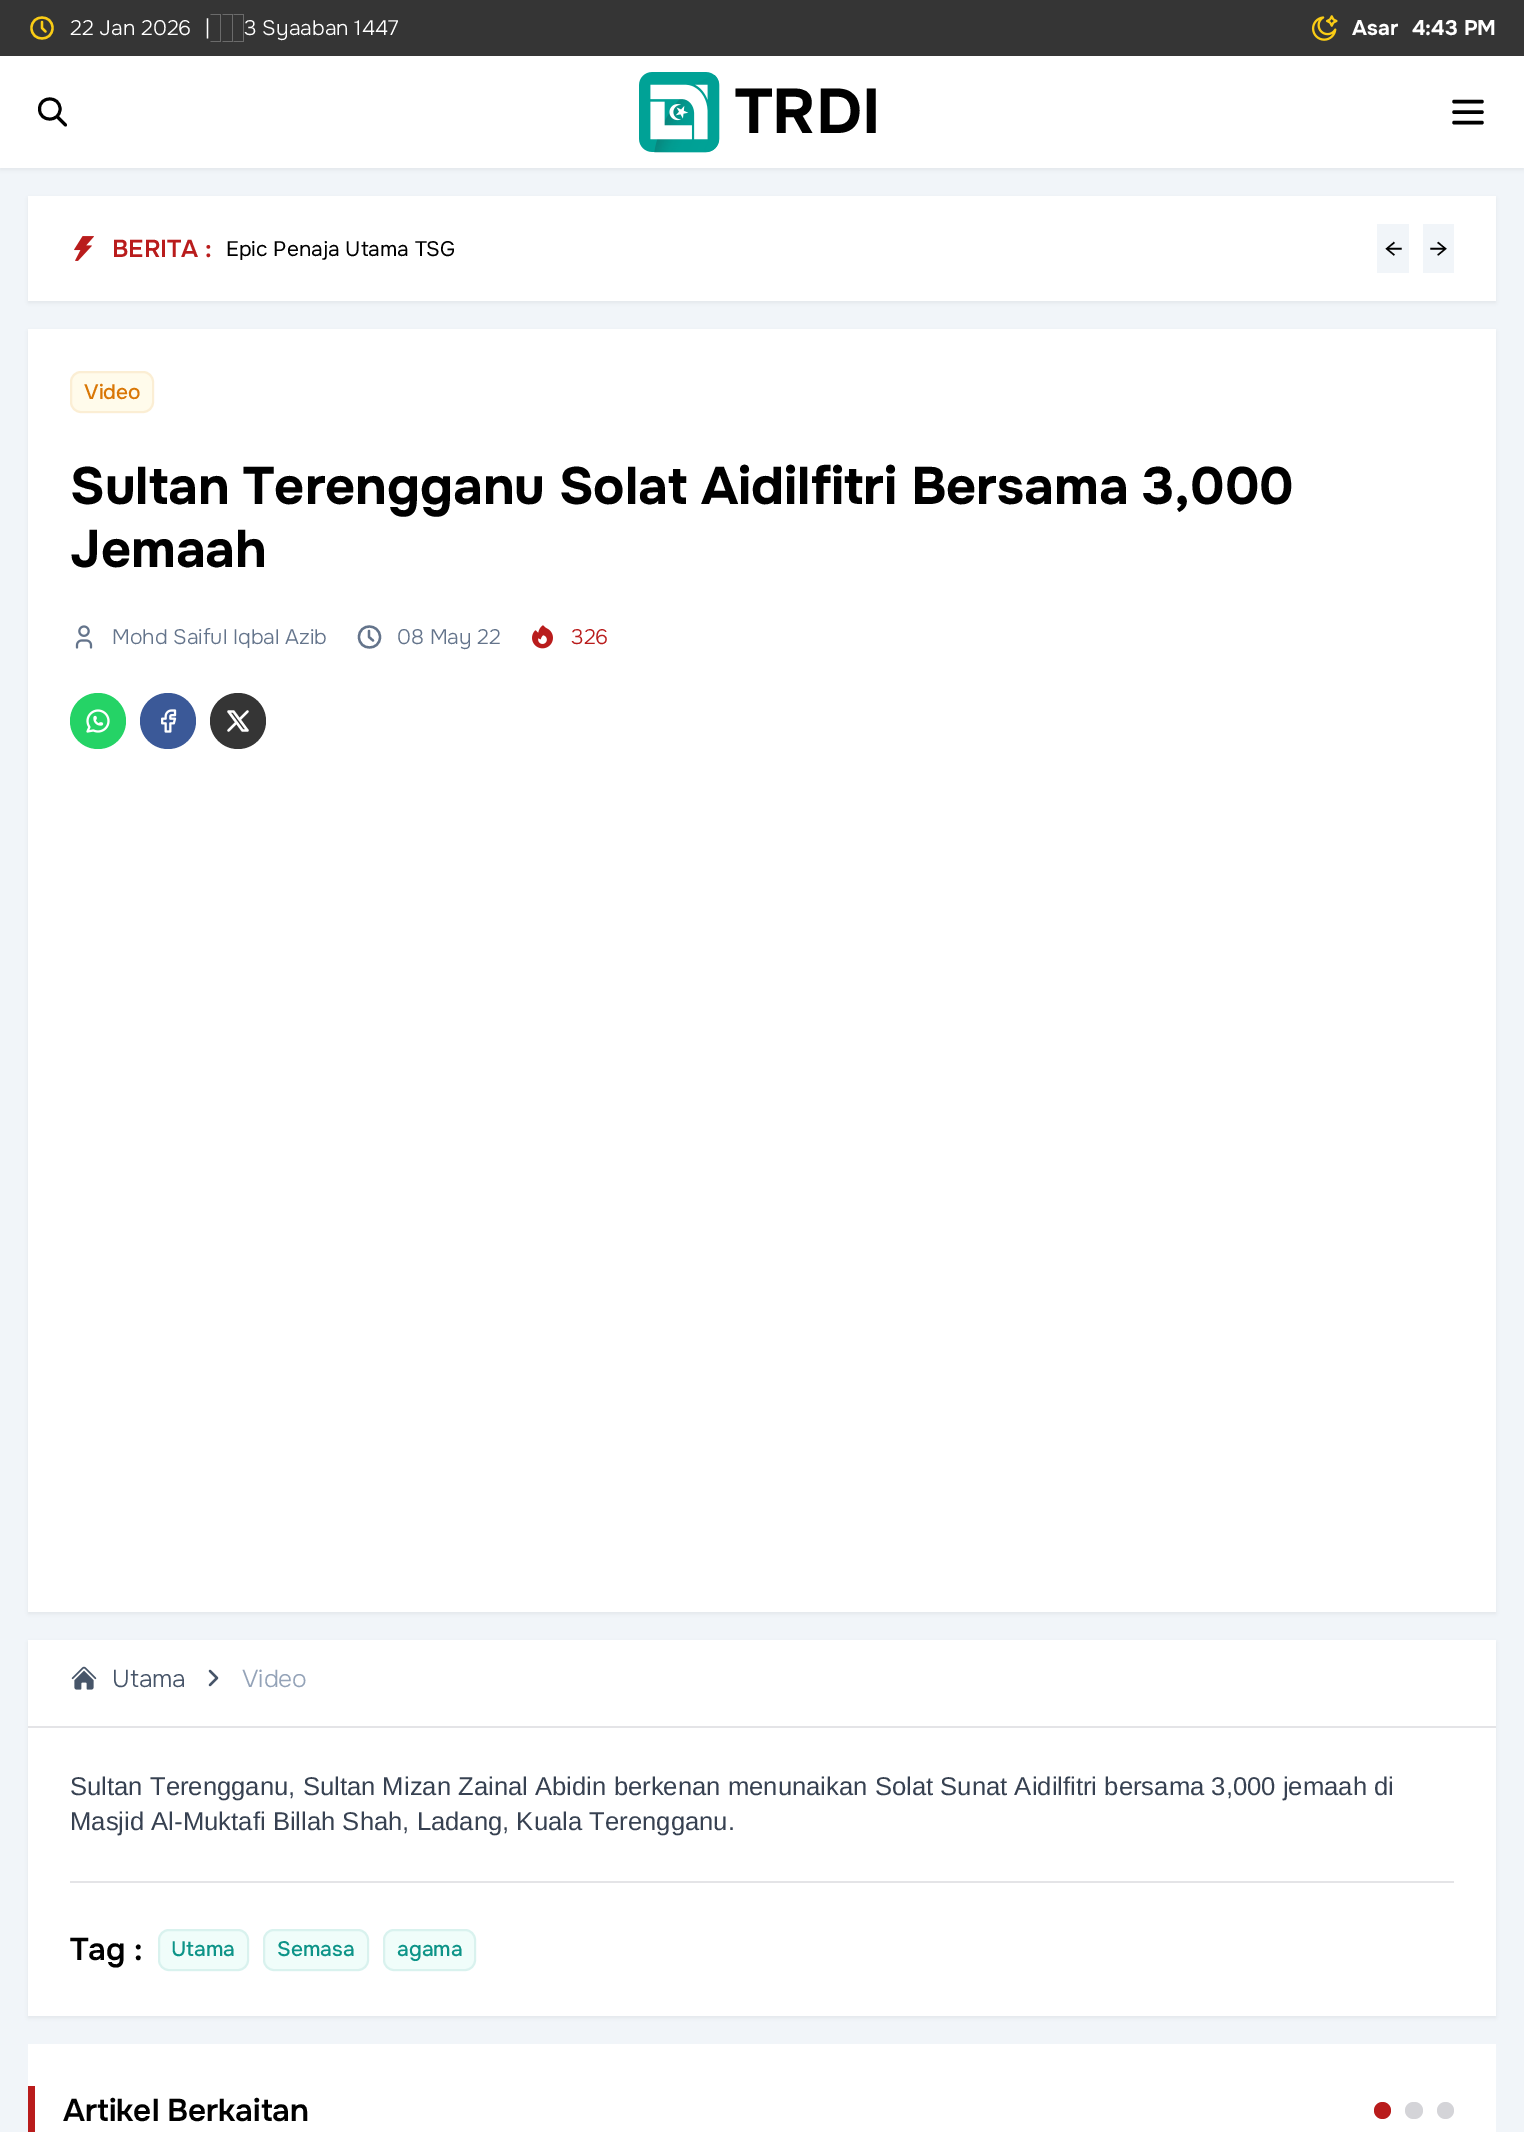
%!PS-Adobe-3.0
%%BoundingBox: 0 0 1524 2132
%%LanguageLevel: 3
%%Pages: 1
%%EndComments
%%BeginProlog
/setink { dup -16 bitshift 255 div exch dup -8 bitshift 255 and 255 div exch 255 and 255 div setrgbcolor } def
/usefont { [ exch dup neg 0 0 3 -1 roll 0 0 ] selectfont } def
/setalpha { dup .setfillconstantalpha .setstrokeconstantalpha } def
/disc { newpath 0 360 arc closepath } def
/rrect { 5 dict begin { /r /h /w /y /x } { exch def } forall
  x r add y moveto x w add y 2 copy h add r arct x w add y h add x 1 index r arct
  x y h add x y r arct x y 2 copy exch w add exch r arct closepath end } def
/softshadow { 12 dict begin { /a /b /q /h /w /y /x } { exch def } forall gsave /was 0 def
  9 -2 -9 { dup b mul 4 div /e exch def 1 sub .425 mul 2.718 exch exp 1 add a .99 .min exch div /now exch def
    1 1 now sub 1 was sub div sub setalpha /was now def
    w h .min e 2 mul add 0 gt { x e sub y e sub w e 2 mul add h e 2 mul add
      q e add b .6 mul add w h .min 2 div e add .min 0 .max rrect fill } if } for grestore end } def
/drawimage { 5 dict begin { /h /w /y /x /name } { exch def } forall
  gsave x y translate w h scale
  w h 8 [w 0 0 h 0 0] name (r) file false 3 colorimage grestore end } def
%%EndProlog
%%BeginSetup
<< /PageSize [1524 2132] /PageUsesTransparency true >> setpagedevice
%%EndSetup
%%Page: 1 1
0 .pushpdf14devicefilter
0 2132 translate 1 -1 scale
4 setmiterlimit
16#F1F5F9 setink
0 0 1524 2132 rectfill
16#000000 setink
0 2 1524 168 0 2 0.05 softshadow
16#FFFFFF setink
0 56 1524 112 rectfill
16#353535 setink
0 0 1524 56 rectfill
16#FACC15 setink
2.3 setlinewidth
1 setlinecap
1 setlinejoin
31.5 28 moveto 31.5 42 52.5 42 52.5 28 curveto 52.5 14 31.5 14 31.5 28 curveto 42 22 moveto 42 28 lineto 45.5 31.5 lineto stroke
/Onest-Light 21 usefont
16#FFFFFF setink
70 35 moveto (22 Jan 2026) show
205 35 moveto (| 3 Syaaban 1447) show
(img1.raw) 1311 15 27 26 drawimage
/Onest-Bold 21 usefont
1352 35 moveto (Asar) show
1412 35 moveto (4:43 PM) show
16#000000 setink
2.9 setlinewidth
39.5 109 moveto 39.5 122.5 60 122.5 60 109 curveto 60 95.5 39.5 95.5 39.5 109 curveto 65.5 125 moveto 57 116.5 lineto stroke
(img2.raw) 639 72 81 81 drawimage
/Onest-Bold 63 usefont
735 133 moveto (TRDI) show
3.5 setlinewidth
1454 101.5 moveto 1482 101.5 lineto 1454 112 moveto 1482 112 lineto 1454 122.5 moveto 1482 122.5 lineto stroke
28 198 1468 105 0 2 0.05 softshadow
16#FFFFFF setink
28 196 1468 105 rectfill
(img3.raw) 74 236 20 25 drawimage
/Onest-SemiBold 24.5 usefont
16#B91C1C setink
112 257 moveto (BERITA :) show
/Onest-Regular 21 usefont
16#000000 setink
226 256 moveto (Epic Penaja Utama TSG) show
16#F1F5F9 setink
1377 224 32 49 rectfill
/Onest-Regular 24.5 usefont
16#000000 setink
1385 257 moveto (←) show
16#F1F5F9 setink
1423 224 31 49 rectfill
16#000000 setink
1430 257 moveto (→) show
28 331 1468 1283 0 2 0.05 softshadow
16#FFFFFF setink
28 329 1468 1283 rectfill
16#FFFBEB setink
70 371 84 42 11 rrect fill
0.1 setalpha
16#D97706 setink
2 setlinewidth
0 setlinecap
0 setlinejoin
71 372 82 40 10 rrect stroke
/Onest-Medium 21 usefont
1 setalpha
84 399 moveto (Video) show
/Onest-Bold 52.5 usefont
16#000000 setink
70 504 moveto -1 0 32 (Sultan Terengganu Solat Aidilfitri Bersama 3,000) widthshow
70 567 moveto (Jemaah) show
(img4.raw) 75 625 18 24 drawimage
/Onest-Light 21 usefont
16#64748B setink
112 644 moveto (Mohd Saiful Iqbal Azib) show
2.3 setlinewidth
1 setlinecap
1 setlinejoin
359 637 moveto 359 651 380 651 380 637 curveto 379.5 623 359 623 359 637 curveto 369 631 moveto 369 637 lineto 373 640.5 lineto stroke
397 644 moveto (08 May 22) show
(img5.raw) 532 625 21 24 drawimage
16#B91C1C setink
571 644 moveto (326) show
16#25D366 setink
98 721 28 disc fill
(img6.raw) 86 709 24 24 drawimage
16#3B5998 setink
168 721 28 disc fill
(img7.raw) 161 709 16 24 drawimage
16#353535 setink
238 721 28 disc fill
16#FFFFFF setink
228.5 711.5 moveto 242.5 730.5 lineto 247.5 730.5 lineto 233.5 711.5 lineto closepath 228.5 730.5 moveto 236.5 722.5 lineto 239.5 719.5 moveto 247.5 711.5 lineto stroke
16#000000 setink
28 1642 1468 376 0 2 0.05 softshadow
16#FFFFFF setink
28 1640 1468 376 rectfill
(img8.raw) 71 1666 26 24 drawimage
/Onest-Light 24.5 usefont
16#475569 setink
112 1687 moveto (Utama) show
210 1671 moveto 217 1678 lineto 210 1685 lineto stroke
16#94A3B8 setink
242 1687 moveto (Video) show
16#E4E4E7 setink
28 1726 1468 2 rectfill
/LiberationSans-Regular 25.67 usefont
16#374151 setink
70 1795 moveto (Sultan Terengganu, Sultan Mizan Zainal Abidin berkenan menunaikan Solat Sunat Aidilfitri bersama 3,000 jemaah di) show
70 1830 moveto (Masjid Al-Muktafi Billah Shah, Ladang, Kuala Terengganu.) show
16#E4E4E7 setink
70 1881 1384 2 rectfill
/Onest-SemiBold 31.5 usefont
16#000000 setink
70 1960 moveto (Tag :) show
16#F0FDFA setink
158 1929 91 42 11 rrect fill
0.1 setalpha
16#0D9488 setink
2 setlinewidth
0 setlinecap
0 setlinejoin
159 1930 89 40 10 rrect stroke
/Onest-Medium 21 usefont
1 setalpha
171 1956 moveto (Utama) show
16#F0FDFA setink
263 1929 106 42 11 rrect fill
0.1 setalpha
16#0D9488 setink
264 1930 104 40 10 rrect stroke
1 setalpha
277 1956 moveto (Semasa) show
16#F0FDFA setink
383 1929 93 42 11 rrect fill
0.1 setalpha
16#0D9488 setink
384 1930 91 40 10 rrect stroke
1 setalpha
397 1956 moveto (agama) show
16#FFFFFF setink
28 2044 1468 88 rectfill
16#B91C1C setink
28 2086 7 46 rectfill
/Onest-SemiBold 31.5 usefont
16#000000 setink
63 2121 moveto -1 0 32 (Artikel Berkaitan) widthshow
16#B91C1C setink
1382.5 2110.5 8.5 disc fill
16#D4D4D8 setink
1405 2102 18 17 8.5 rrect fill
1445.5 2110.5 8.5 disc fill
.poppdf14devicefilter showpage
%%EOF
